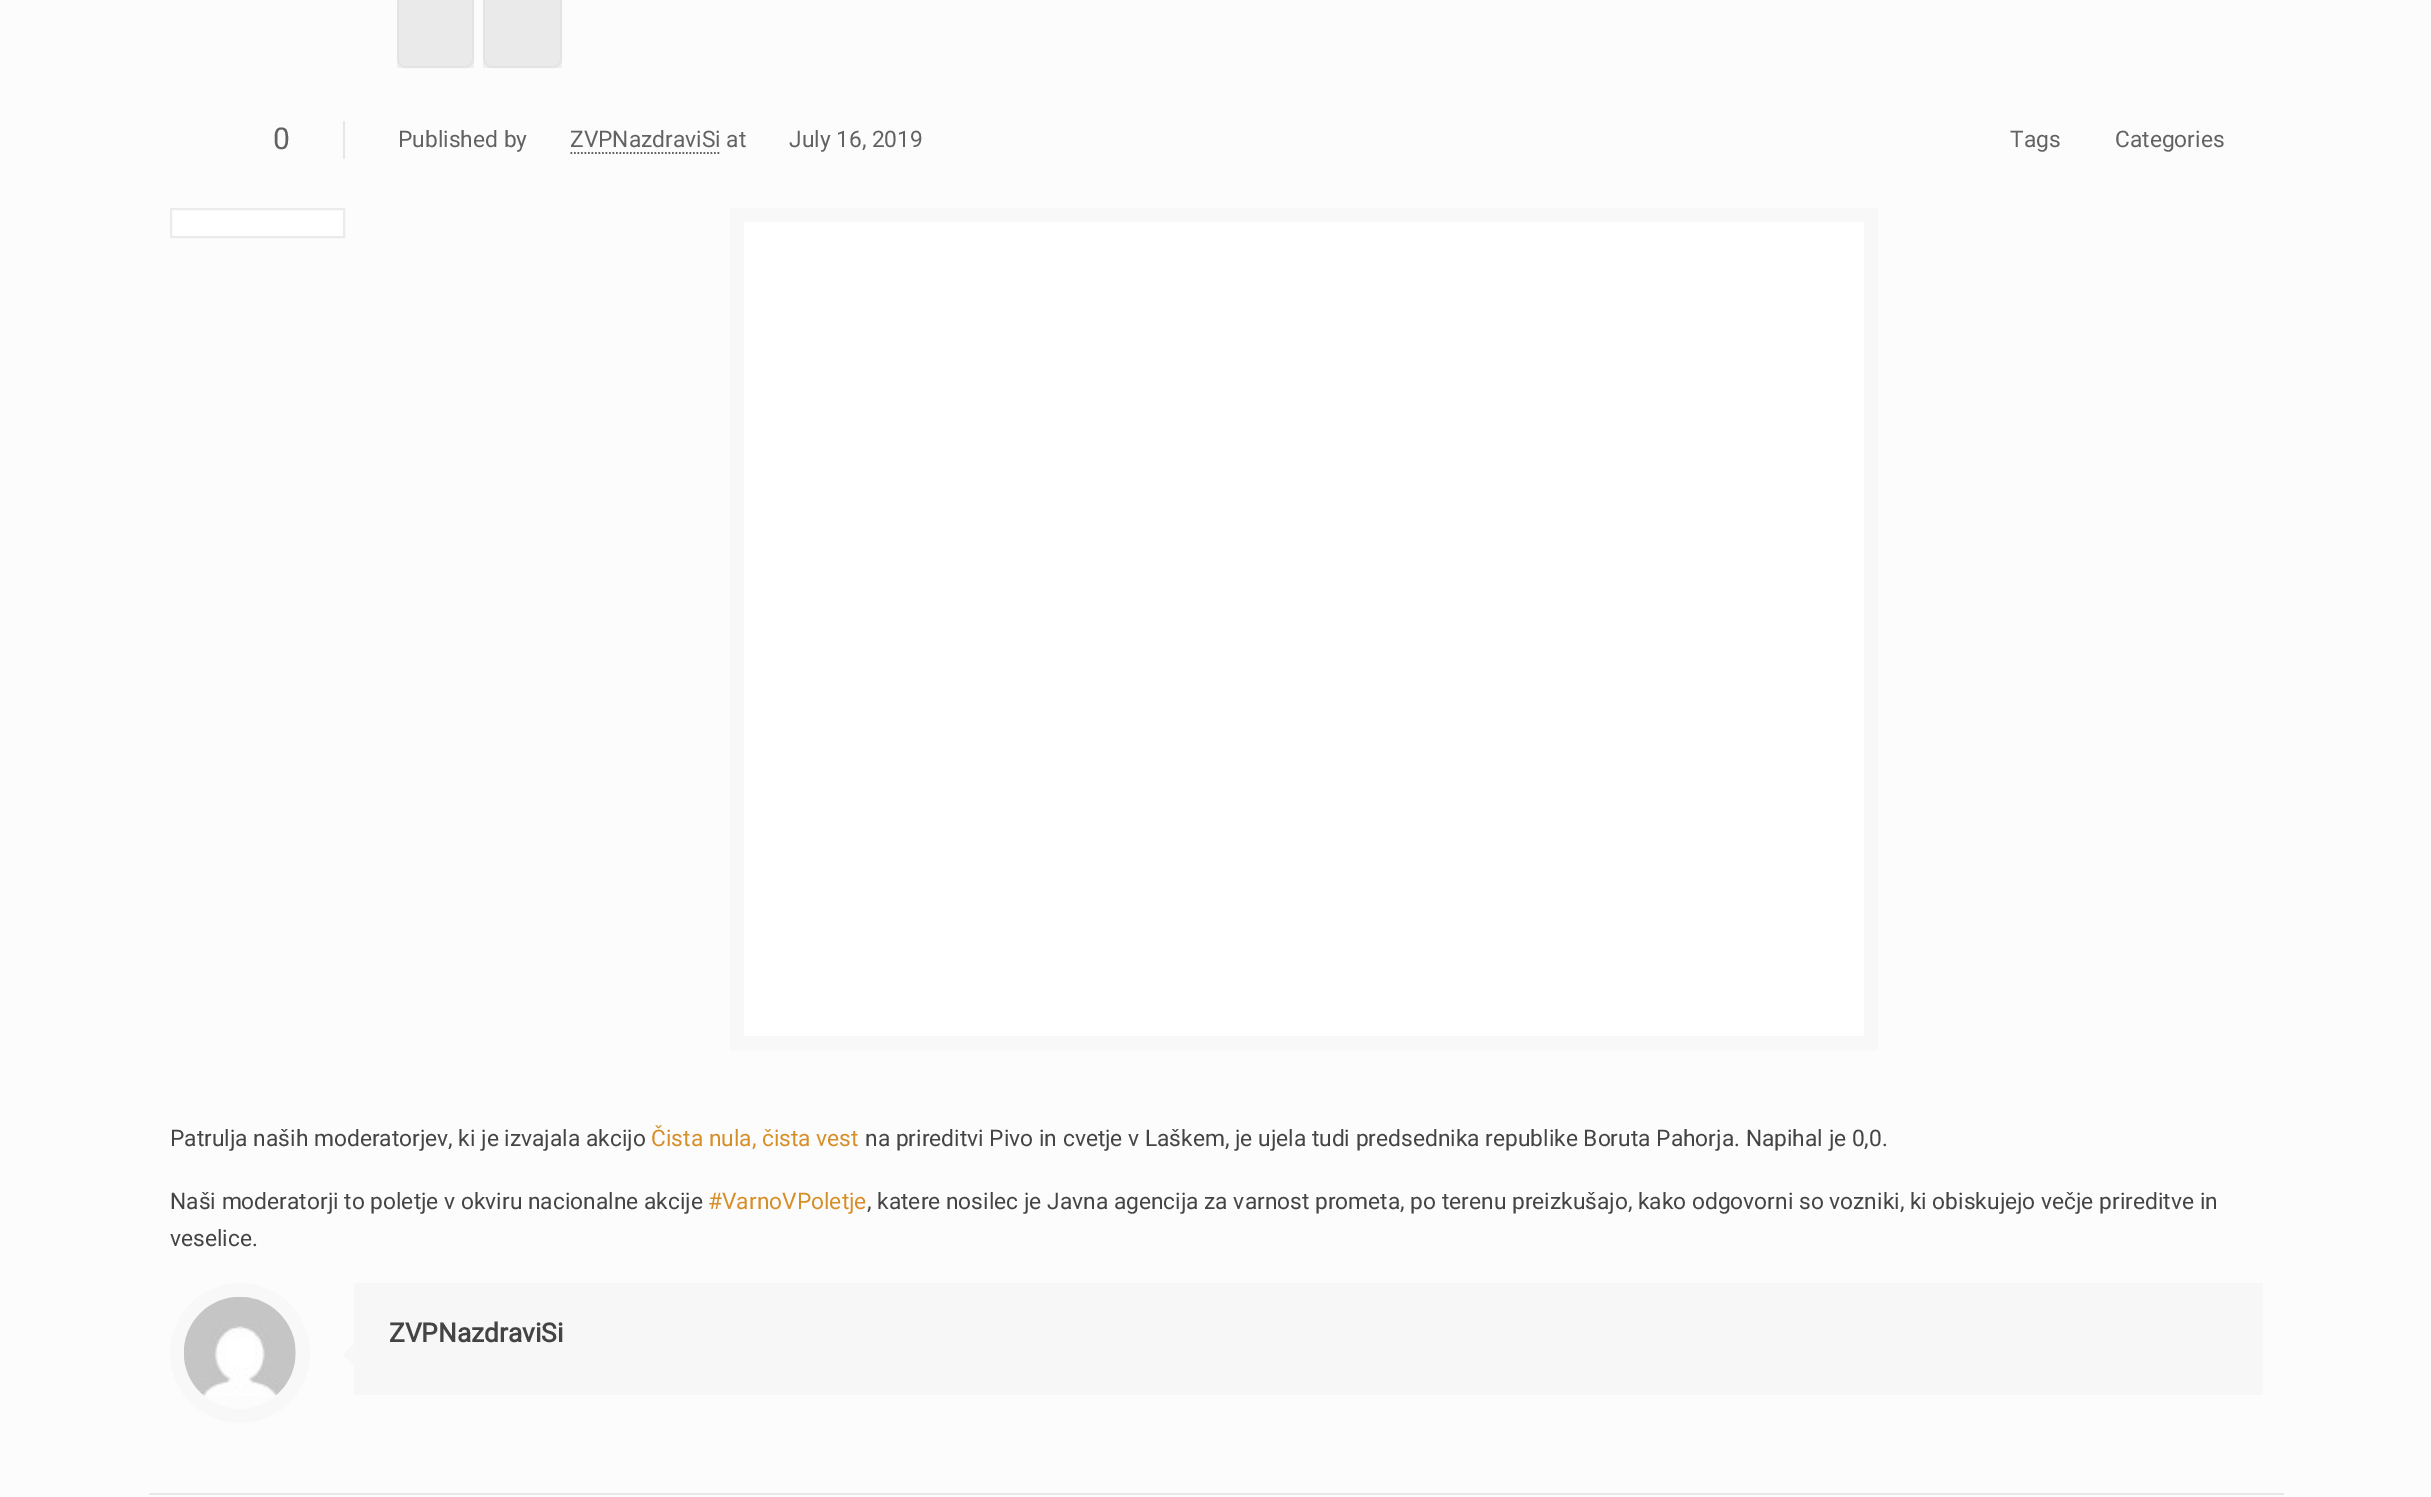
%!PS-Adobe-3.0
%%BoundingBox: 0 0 2431 1497
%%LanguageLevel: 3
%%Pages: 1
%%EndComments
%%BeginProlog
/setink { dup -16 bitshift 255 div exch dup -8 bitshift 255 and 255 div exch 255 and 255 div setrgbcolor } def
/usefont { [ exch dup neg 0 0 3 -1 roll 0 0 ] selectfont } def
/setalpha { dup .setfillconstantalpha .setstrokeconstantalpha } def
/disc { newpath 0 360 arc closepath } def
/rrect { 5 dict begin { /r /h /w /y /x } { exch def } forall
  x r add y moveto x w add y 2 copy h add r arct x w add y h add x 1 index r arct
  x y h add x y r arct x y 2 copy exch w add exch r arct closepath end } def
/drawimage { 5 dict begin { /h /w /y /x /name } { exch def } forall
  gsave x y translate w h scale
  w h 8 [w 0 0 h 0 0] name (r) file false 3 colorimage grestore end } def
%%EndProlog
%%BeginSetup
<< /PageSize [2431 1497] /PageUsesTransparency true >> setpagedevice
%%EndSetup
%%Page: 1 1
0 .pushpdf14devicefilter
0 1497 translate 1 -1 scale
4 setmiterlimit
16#FCFCFC setink
0 0 2431 1497 rectfill
16#F7F7F7 setink
398 -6 75 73 8 rrect gsave fill grestore
16#F0F0F0 setink
2 setlinewidth
stroke
0.05 setalpha
16#000000 setink
397 0 77 68 rectfill
1 setalpha
16#F7F7F7 setink
484 -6 77 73 8 rrect gsave fill grestore
16#F0F0F0 setink
stroke
0.05 setalpha
16#000000 setink
483 0 79 68 rectfill
/Roboto-Regular 30 usefont
1 setalpha
16#626262 setink
273 149 moveto (0) show
16#E8E8E8 setink
343 121 2 38 rectfill
/Roboto-Regular 22.75 usefont
16#626262 setink
398 147 moveto (Published by) show
570 147 moveto (ZVPNazdraviSi at) show
1.8 setlinewidth
[1.75 1.75] 0 setdash
570.5 153 moveto 721 153 lineto stroke
[
    [(July 16, 2019) 789 147]
    [(Tags) 2010 147]
    [(Categories) 2115 147]
] { aload pop moveto show } forall
16#FFFFFF setink
171 209 moveto 344 209 lineto 344 237 lineto 171 237 lineto closepath gsave fill grestore
16#EBEBEB setink
2 setlinewidth
[] 0 setdash
stroke
16#F8F8F8 setink
14 setlinewidth
737 215 1134 828 rectstroke
16#FFFFFF setink
744 222 1120 814 rectfill
16#444444 setink
170 1146 moveto (Patrulja naših moderatorjev, ki je izvajala akcijo) show
16#D68E29 setink
651 1146 moveto (Čista nula, čista vest) show
16#444444 setink
865 1146 moveto (na prireditvi Pivo in cvetje v Laškem, je ujela tudi predsednika republike Boruta Pahorja. Napihal je 0,0.) show
170 1209 moveto (Naši moderatorji to poletje v okviru nacionalne akcije) show
16#D68E29 setink
708 1209 moveto (#VarnoVPoletje) show
16#444444 setink
867 1209 moveto (, katere nosilec je Javna agencija za varnost prometa, po terenu preizkušajo, kako odgovorni so vozniki, ki obiskujejo večje prireditve in) show
170 1246 moveto (veselice.) show
16#F8F8F8 setink
240 1353 63 disc stroke
(img1.raw) 184 1297 112 99 drawimage
16#F7F7F7 setink
354 1283 1909 112 rectfill
/Roboto-Bold 26.25 usefont
16#444444 setink
389 1342 moveto (ZVPNazdraviSi) show
16#F7F7F7 setink
353.5 1344 moveto 353.5 1365 lineto 343 1354.5 lineto closepath fill
16#E8E8E8 setink
149 1493 2135 2 rectfill
.poppdf14devicefilter showpage
%%EOF
